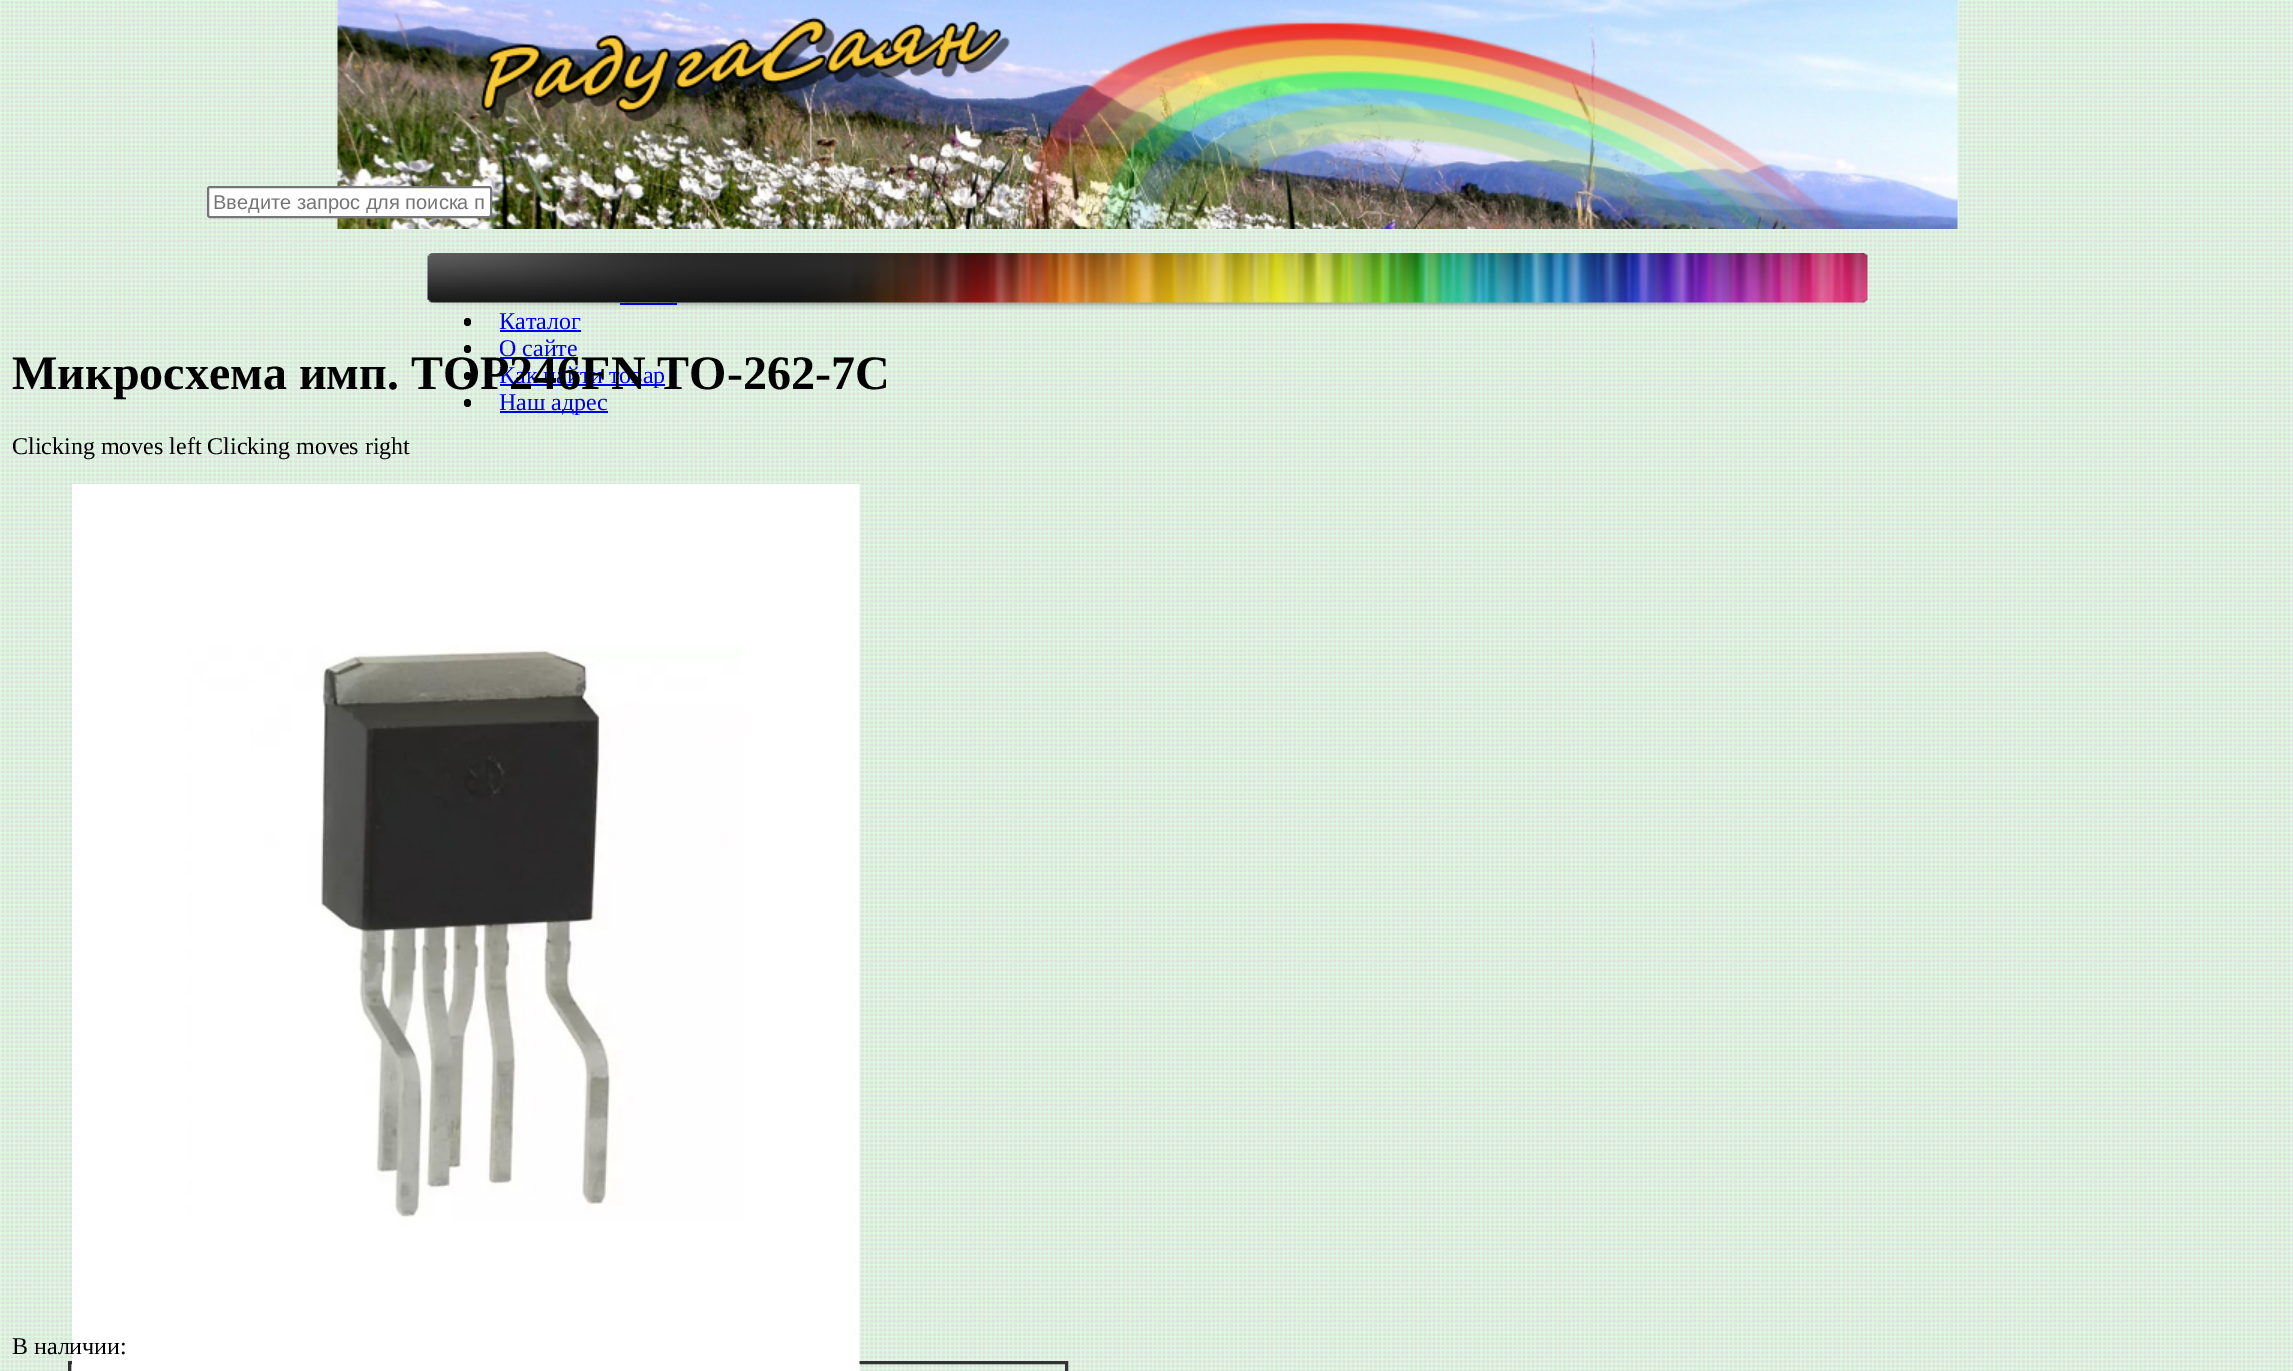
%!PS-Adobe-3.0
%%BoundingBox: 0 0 2293 1371
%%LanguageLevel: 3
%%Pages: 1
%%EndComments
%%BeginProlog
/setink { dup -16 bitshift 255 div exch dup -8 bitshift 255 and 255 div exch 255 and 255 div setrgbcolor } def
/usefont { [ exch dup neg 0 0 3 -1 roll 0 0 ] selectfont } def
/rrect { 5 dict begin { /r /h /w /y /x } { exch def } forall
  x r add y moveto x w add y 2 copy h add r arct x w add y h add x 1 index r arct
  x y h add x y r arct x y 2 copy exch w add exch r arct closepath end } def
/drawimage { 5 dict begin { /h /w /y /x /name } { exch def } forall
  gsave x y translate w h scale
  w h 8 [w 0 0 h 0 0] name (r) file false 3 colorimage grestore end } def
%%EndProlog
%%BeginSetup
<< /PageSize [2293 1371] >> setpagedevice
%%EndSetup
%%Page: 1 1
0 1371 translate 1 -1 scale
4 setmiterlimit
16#DDFBE0 setink
0 0 2293 1371 rectfill
(img1.raw) 0 1 2293 1370 drawimage
(img2.raw) 337 0 1621 229 drawimage
16#FFFFFF setink
208 187 283 30 2 rrect gsave fill grestore
16#767676 setink
2 setlinewidth
stroke
/LiberationSans-Regular 20 usefont
16#757575 setink
213 209 moveto (Введите запрос для поиска п) show
16#0000EE setink
620 303 57 2 rectfill
(img3.raw) 427 253 1441 57 drawimage
16#000000 setink
464 318 7 8 3.5 rrect fill
/LiberationSerif-Regular 24 usefont
16#0000EE setink
499 329 moveto (Каталог) show
500 330 81 2 rectfill
16#000000 setink
464 345 7 8 3.5 rrect fill
16#0000EE setink
499 356 moveto (О сайте) show
500 357 78 2 rectfill
16#000000 setink
464 372 7 8 3.5 rrect fill
16#0000EE setink
500 384 165 2 rectfill
499 383 moveto (Как найти товар) show
16#000000 setink
464 399 7 8 3.5 rrect fill
16#0000EE setink
500 411 108 2 rectfill
499 410 moveto (Наш адрес) show
/LiberationSerif-Bold 48 usefont
16#000000 setink
12 389 moveto (Микросхема имп. TOP246FN TO-262-7C) show
/LiberationSerif-Regular 24 usefont
12 454 moveto (Clicking moves left Clicking moves right) show
16#313233 setink
69 1362 998 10 rectstroke
70 1363 64 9 rectstroke
298 1363 768 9 rectstroke
(img4.raw) 72 484 788 887 drawimage
16#000000 setink
12 1354 moveto (В наличии:) show
showpage
%%EOF
